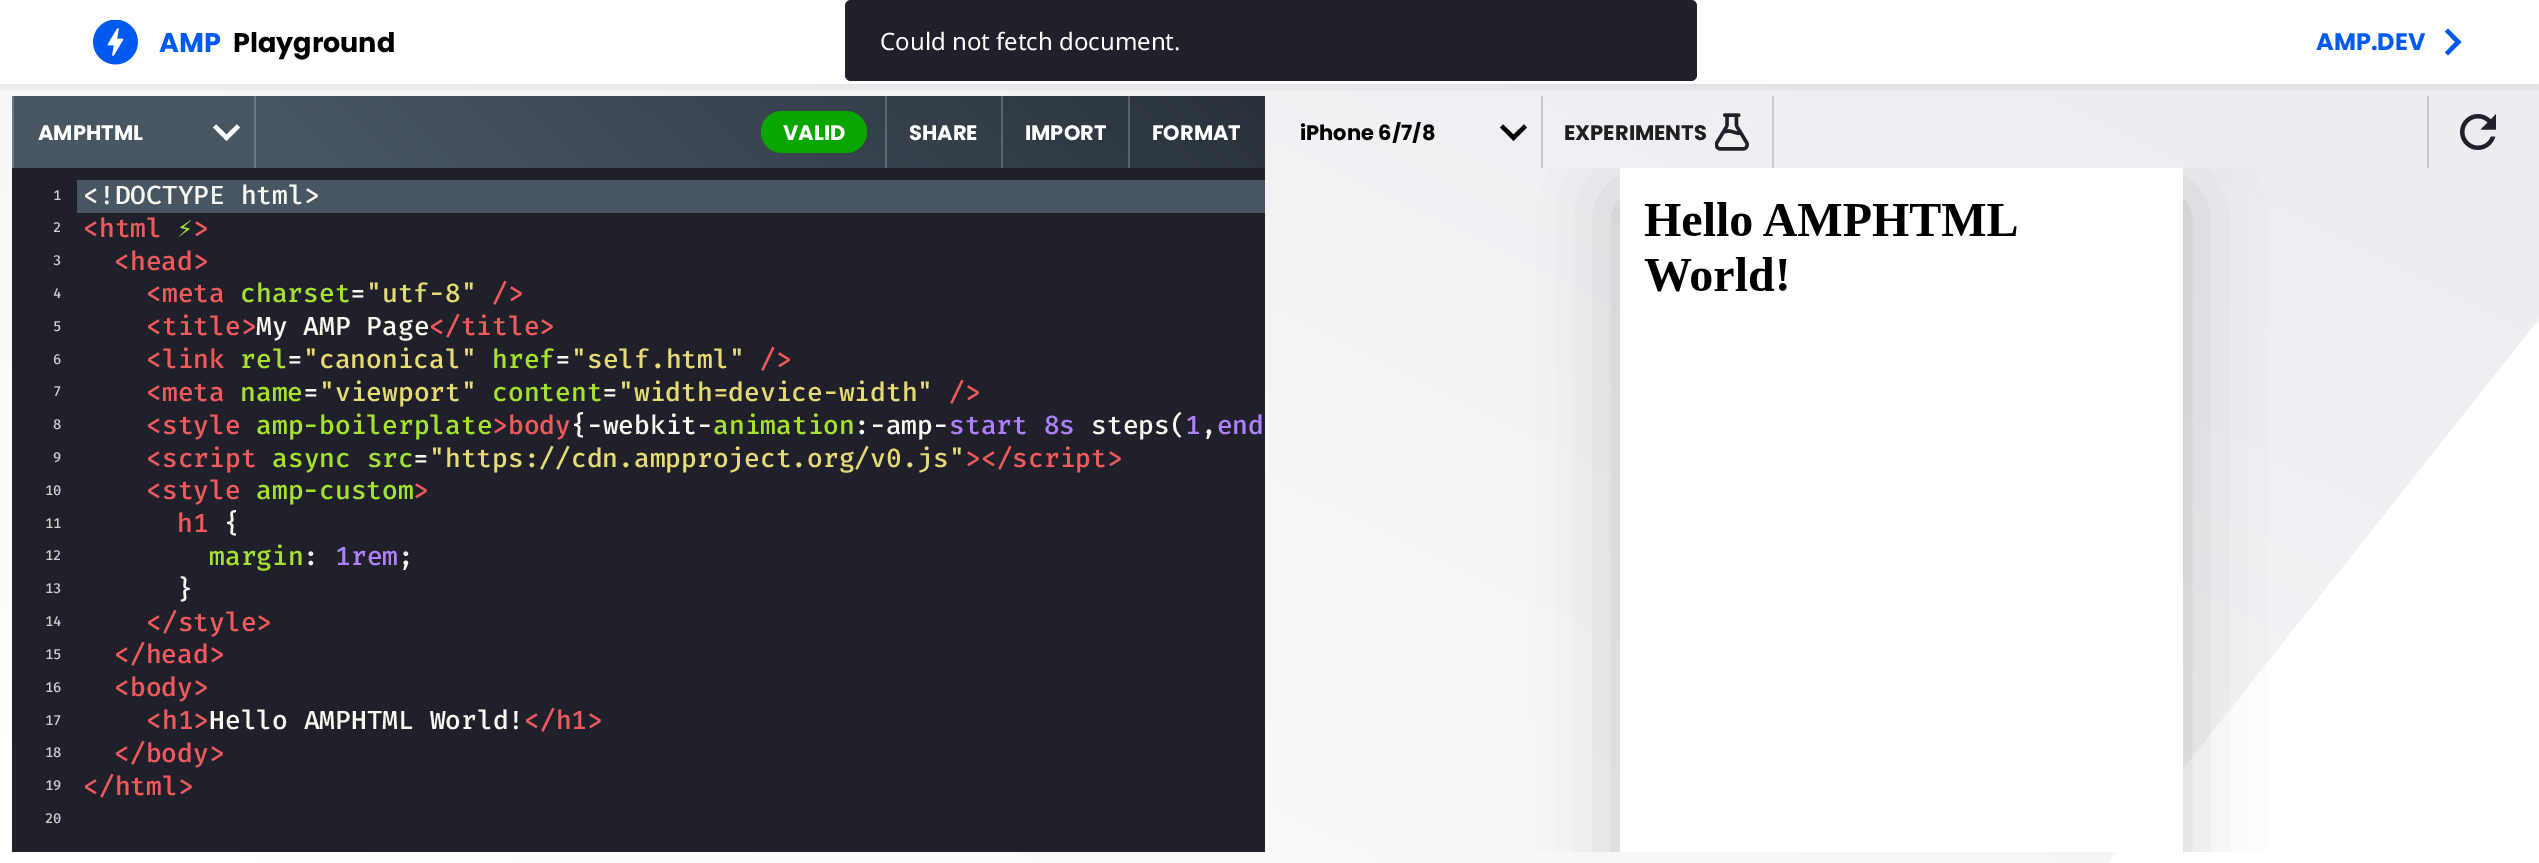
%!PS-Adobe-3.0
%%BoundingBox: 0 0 2539 863
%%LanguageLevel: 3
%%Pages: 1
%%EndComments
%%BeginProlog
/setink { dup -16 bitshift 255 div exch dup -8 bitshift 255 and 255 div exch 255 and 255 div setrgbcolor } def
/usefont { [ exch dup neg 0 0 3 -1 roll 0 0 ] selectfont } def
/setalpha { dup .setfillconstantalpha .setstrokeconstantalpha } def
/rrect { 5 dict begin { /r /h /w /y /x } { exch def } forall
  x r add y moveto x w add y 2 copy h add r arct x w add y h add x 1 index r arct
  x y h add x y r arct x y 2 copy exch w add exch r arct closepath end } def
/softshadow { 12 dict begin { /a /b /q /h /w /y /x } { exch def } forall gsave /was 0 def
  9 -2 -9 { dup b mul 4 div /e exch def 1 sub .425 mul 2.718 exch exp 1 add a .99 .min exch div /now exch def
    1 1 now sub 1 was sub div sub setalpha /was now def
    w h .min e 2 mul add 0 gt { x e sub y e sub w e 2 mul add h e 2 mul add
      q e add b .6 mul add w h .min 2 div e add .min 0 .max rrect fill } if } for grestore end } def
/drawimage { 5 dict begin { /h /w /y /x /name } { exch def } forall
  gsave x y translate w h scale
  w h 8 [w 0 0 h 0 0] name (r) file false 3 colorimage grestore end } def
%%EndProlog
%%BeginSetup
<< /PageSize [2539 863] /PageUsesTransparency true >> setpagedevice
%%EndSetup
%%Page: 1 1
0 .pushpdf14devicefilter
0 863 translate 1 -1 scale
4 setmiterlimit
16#FFFFFF setink
0 0 2539 863 rectfill
gsave 0 84 moveto 2539 84 lineto 2539 863 lineto 0 863 lineto closepath clip newpath
<< /ShadingType 2 /ColorSpace /DeviceRGB /Coords [872 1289 1667 -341] /Extend [true true] /Function << /FunctionType 3 /Domain [0 1] /Functions [<< /FunctionType 2 /Domain [0 1] /C0 [1 1 1] /C1 [1 1 1] /N 1 >> << /FunctionType 2 /Domain [0 1] /C0 [1 1 1] /C1 [0.929 0.929 0.945] /N 1 >> << /FunctionType 2 /Domain [0 1] /C0 [0.929 0.929 0.945] /C1 [0.929 0.929 0.945] /N 1 >>] /Bounds [0.05 0.91] /Encode [0 1 0 1 0 1] >> >> shfill grestore
gsave 14 96 moveto 1265 96 lineto 1265 168 lineto 14 168 lineto closepath clip newpath
<< /ShadingType 2 /ColorSpace /DeviceRGB /Coords [969 -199 307 463] /Extend [true true] /Function << /FunctionType 3 /Domain [0 1] /Functions [<< /FunctionType 2 /Domain [0 1] /C0 [0.161 0.196 0.235] /C1 [0.282 0.333 0.388] /N 1 >> << /FunctionType 2 /Domain [0 1] /C0 [0.282 0.333 0.388] /C1 [0.282 0.333 0.388] /N 1 >>] /Bounds [0.75] /Encode [0 1 0 1] >> >> shfill grestore
gsave 1128 96 moveto 1130 96 lineto 1130 168 lineto 1128 168 lineto closepath clip newpath
<< /ShadingType 2 /ColorSpace /DeviceRGB /Coords [969 -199 307 463] /Extend [true true] /Function << /FunctionType 3 /Domain [0 1] /Functions [<< /FunctionType 2 /Domain [0 1] /C0 [0.329 0.357 0.388] /C1 [0.427 0.467 0.51] /N 1 >> << /FunctionType 2 /Domain [0 1] /C0 [0.427 0.467 0.51] /C1 [0.427 0.467 0.51] /N 1 >>] /Bounds [0.75] /Encode [0 1 0 1] >> >> shfill grestore
gsave 1001 96 moveto 1003 96 lineto 1003 168 lineto 1001 168 lineto closepath clip newpath
<< /ShadingType 2 /ColorSpace /DeviceRGB /Coords [969 -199 307 463] /Extend [true true] /Function << /FunctionType 3 /Domain [0 1] /Functions [<< /FunctionType 2 /Domain [0 1] /C0 [0.329 0.357 0.388] /C1 [0.427 0.467 0.51] /N 1 >> << /FunctionType 2 /Domain [0 1] /C0 [0.427 0.467 0.51] /C1 [0.427 0.467 0.51] /N 1 >>] /Bounds [0.75] /Encode [0 1 0 1] >> >> shfill grestore
gsave 885 96 moveto 887 96 lineto 887 168 lineto 885 168 lineto closepath clip newpath
<< /ShadingType 2 /ColorSpace /DeviceRGB /Coords [969 -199 307 463] /Extend [true true] /Function << /FunctionType 3 /Domain [0 1] /Functions [<< /FunctionType 2 /Domain [0 1] /C0 [0.329 0.357 0.388] /C1 [0.427 0.467 0.51] /N 1 >> << /FunctionType 2 /Domain [0 1] /C0 [0.427 0.467 0.51] /C1 [0.427 0.467 0.51] /N 1 >>] /Bounds [0.75] /Encode [0 1 0 1] >> >> shfill grestore
16#6D7782 setink
254 96 2 72 rectfill
12 96 2 72 rectfill
gsave
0 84 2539 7 rectclip
16#000000 setink
0 3 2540 84 0 7.5 0.07 softshadow
grestore
16#20202A setink
845 0 852 81 6 rrect fill
/NotoSans-Regular 24 usefont
16#FFFFFF setink
880 50 moveto (Could not fetch document.) show
(img1.raw) 93 20 45 45 drawimage
/Poppins-Bold 27 usefont
16#005AF0 setink
159 52 moveto (AMP) show
16#000000 setink
233 52 moveto (Playground) show
16#005AF0 setink
2448 28.5 moveto 2445 31.5 lineto 2455 42 lineto 2445 52.5 lineto 2448 55.5 lineto 2461.5 42 lineto closepath fill
/Poppins-Bold 24 usefont
2316 50 moveto (AMP.DEV) show
16#FFFFFF setink
216 124.5 moveto 226.5 134.5 lineto 237 124.5 lineto 240 127.5 lineto 226.5 141 lineto 213 127.5 lineto closepath fill
/Poppins-Bold 21 usefont
38 140 moveto (AMPHTML) show
16#09A600 setink
761 111 106 42 21 rrect fill
16#FFFFFF setink
[
    [(VALID) 783 140]
    [(SHARE) 909 140]
    [(IMPORT) 1025 140]
    [(FORMAT) 1152 140]
] { aload pop moveto show } forall
16#20202A setink
12 168 1253 684 rectfill
gsave 77 180 moveto 1265 180 lineto 1265 213 lineto 77 213 lineto closepath clip newpath
<< /ShadingType 2 /ColorSpace /DeviceRGB /Coords [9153 -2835 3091 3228] /Extend [true true] /Function << /FunctionType 3 /Domain [0 1] /Functions [<< /FunctionType 2 /Domain [0 1] /C0 [0.161 0.196 0.235] /C1 [0.282 0.333 0.388] /N 1 >> << /FunctionType 2 /Domain [0 1] /C0 [0.282 0.333 0.388] /C1 [0.282 0.333 0.388] /N 1 >>] /Bounds [0.75] /Encode [0 1 0 1] >> >> shfill grestore
/FiraMono-Medium 14 usefont
16#D0D0D0 setink
53 200 moveto (1) show
/FiraMono-Medium 26.25 usefont
16#F8F8F0 setink
83 204 moveto (<!DOCTYPE html>) show
/FiraMono-Medium 14 usefont
16#D0D0D0 setink
53 232 moveto (2) show
/FiraMono-Medium 26.25 usefont
16#F15A5A setink
83 237 moveto (<html) show
/DejaVuSansMono-Regular 26.25 usefont
16#A6E22E setink
177 237 moveto (⚡) show
/FiraMono-Medium 26.25 usefont
16#F15A5A setink
193 237 moveto (>) show
/FiraMono-Medium 14 usefont
16#D0D0D0 setink
53 265 moveto (3) show
/FiraMono-Medium 26.25 usefont
16#F15A5A setink
114 270 moveto (<head>) show
/FiraMono-Medium 14 usefont
16#D0D0D0 setink
53 298 moveto (4) show
/FiraMono-Medium 26.25 usefont
16#F15A5A setink
146 302 moveto (<meta) show
16#A6E22E setink
240 302 moveto (charset) show
16#F8F8F0 setink
350 302 moveto (=) show
16#E6DB74 setink
366 302 moveto ("utf-8") show
16#F15A5A setink
492 302 moveto (/>) show
/FiraMono-Medium 14 usefont
16#D0D0D0 setink
53 331 moveto (5) show
/FiraMono-Medium 26.25 usefont
16#F15A5A setink
146 335 moveto (<title>) show
16#F8F8F0 setink
256 335 moveto (My AMP Page) show
16#F15A5A setink
429 335 moveto (</title>) show
/FiraMono-Medium 14 usefont
16#D0D0D0 setink
53 364 moveto (6) show
/FiraMono-Medium 26.25 usefont
16#F15A5A setink
146 368 moveto (<link) show
16#A6E22E setink
240 368 moveto (rel) show
16#F8F8F0 setink
287 368 moveto (=) show
16#E6DB74 setink
303 368 moveto ("canonical") show
16#A6E22E setink
492 368 moveto (href) show
16#F8F8F0 setink
555 368 moveto (=) show
16#E6DB74 setink
571 368 moveto ("self.html") show
16#F15A5A setink
760 368 moveto (/>) show
/FiraMono-Medium 14 usefont
16#D0D0D0 setink
53 396 moveto (7) show
/FiraMono-Medium 26.25 usefont
16#F15A5A setink
146 401 moveto (<meta) show
16#A6E22E setink
240 401 moveto (name) show
16#F8F8F0 setink
303 401 moveto (=) show
16#E6DB74 setink
319 401 moveto ("viewport") show
16#A6E22E setink
492 401 moveto (content) show
16#F8F8F0 setink
602 401 moveto (=) show
16#E6DB74 setink
618 401 moveto ("width=device-width") show
16#F15A5A setink
949 401 moveto (/>) show
/FiraMono-Medium 14 usefont
16#D0D0D0 setink
53 429 moveto (8) show
/FiraMono-Medium 26.25 usefont
16#F15A5A setink
146 434 moveto (<style) show
16#A6E22E setink
256 434 moveto (amp-boilerplate) show
16#F15A5A setink
492 434 moveto (>body) show
16#F8F8F0 setink
571 434 moveto ({-webkit-) show
16#A6E22E setink
713 434 moveto (animation) show
16#F8F8F0 setink
854 434 moveto (:-amp-) show
16#AE81FF setink
949 434 moveto (start 8s) show
16#F8F8F0 setink
1091 434 moveto (steps\( ,) show
16#AE81FF setink
1185 434 moveto (1 end) show
/FiraMono-Medium 14 usefont
16#D0D0D0 setink
53 462 moveto (9) show
/FiraMono-Medium 26.25 usefont
16#F15A5A setink
146 467 moveto (<script) show
16#A6E22E setink
272 467 moveto (async src) show
16#F8F8F0 setink
413 467 moveto (=) show
16#E6DB74 setink
429 467 moveto ("https://cdn.ampproject.org/v0.js") show
16#F15A5A setink
965 467 moveto (></script>) show
/FiraMono-Medium 14 usefont
16#D0D0D0 setink
45 495 moveto (10) show
/FiraMono-Medium 26.25 usefont
16#F15A5A setink
146 499 moveto (<style) show
16#A6E22E setink
256 499 moveto (amp-custom) show
16#F15A5A setink
413 499 moveto (>) show
/FiraMono-Medium 14 usefont
16#D0D0D0 setink
45 528 moveto (11) show
/FiraMono-Medium 26.25 usefont
16#F15A5A setink
177 532 moveto (h1) show
16#F8F8F0 setink
224 532 moveto ({) show
/FiraMono-Medium 14 usefont
16#D0D0D0 setink
45 560 moveto (12) show
/FiraMono-Medium 26.25 usefont
16#A6E22E setink
209 565 moveto (margin) show
16#F8F8F0 setink
303 565 moveto (:) show
16#AE81FF setink
335 565 moveto (1rem) show
16#F8F8F0 setink
398 565 moveto (;) show
/FiraMono-Medium 14 usefont
16#D0D0D0 setink
45 593 moveto (13) show
/FiraMono-Medium 26.25 usefont
16#F8F8F0 setink
177 598 moveto (}) show
/FiraMono-Medium 14 usefont
16#D0D0D0 setink
45 626 moveto (14) show
/FiraMono-Medium 26.25 usefont
16#F15A5A setink
146 631 moveto (</style>) show
/FiraMono-Medium 14 usefont
16#D0D0D0 setink
45 659 moveto (15) show
/FiraMono-Medium 26.25 usefont
16#F15A5A setink
114 663 moveto (</head>) show
/FiraMono-Medium 14 usefont
16#D0D0D0 setink
45 692 moveto (16) show
/FiraMono-Medium 26.25 usefont
16#F15A5A setink
114 696 moveto (<body>) show
/FiraMono-Medium 14 usefont
16#D0D0D0 setink
45 725 moveto (17) show
/FiraMono-Medium 26.25 usefont
16#F15A5A setink
146 729 moveto (<h1>) show
16#F8F8F0 setink
209 729 moveto (Hello AMPHTML World!) show
16#F15A5A setink
524 729 moveto (</h1>) show
/FiraMono-Medium 14 usefont
16#D0D0D0 setink
45 757 moveto (18) show
/FiraMono-Medium 26.25 usefont
16#F15A5A setink
114 762 moveto (</body>) show
/FiraMono-Medium 14 usefont
16#D0D0D0 setink
45 790 moveto (19) show
/FiraMono-Medium 26.25 usefont
16#F15A5A setink
83 795 moveto (</html>) show
/FiraMono-Medium 14 usefont
16#D0D0D0 setink
45 823 moveto (20) show
16#000000 setink
1503 124.5 moveto 1513.5 134.5 lineto 1524 124.5 lineto 1527 127.5 lineto 1513.5 141 lineto 1500 127.5 lineto closepath fill
0.15 setalpha
1541 96 2 72 rectfill
gsave
1301 122 186 21 rectclip
/Poppins-Bold 21 usefont
1 setalpha
1300 140 moveto (iPhone 6/7/8) show
grestore
1772 96 2 72 rectfill
/Poppins-Bold 21 usefont
1 setalpha
16#1F1F20 setink
1564 140 moveto (EXPERIMENTS) show
(img2.raw) 1715 113 34 38 drawimage
16#C9C9CD setink
2427 96 2 72 rectfill
(img3.raw) 2460 114 36 36 drawimage
16#FFFFFF setink
2108 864 moveto 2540 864 lineto 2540 318 lineto closepath fill
gsave
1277 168 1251 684 rectclip
16#000000 setink
1620 198 563 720 0 37.5 0.2 softshadow
grestore
1620 168 563 684 rectfill
(img4.raw) 1644 202 373 90 drawimage
.poppdf14devicefilter showpage
%%EOF
